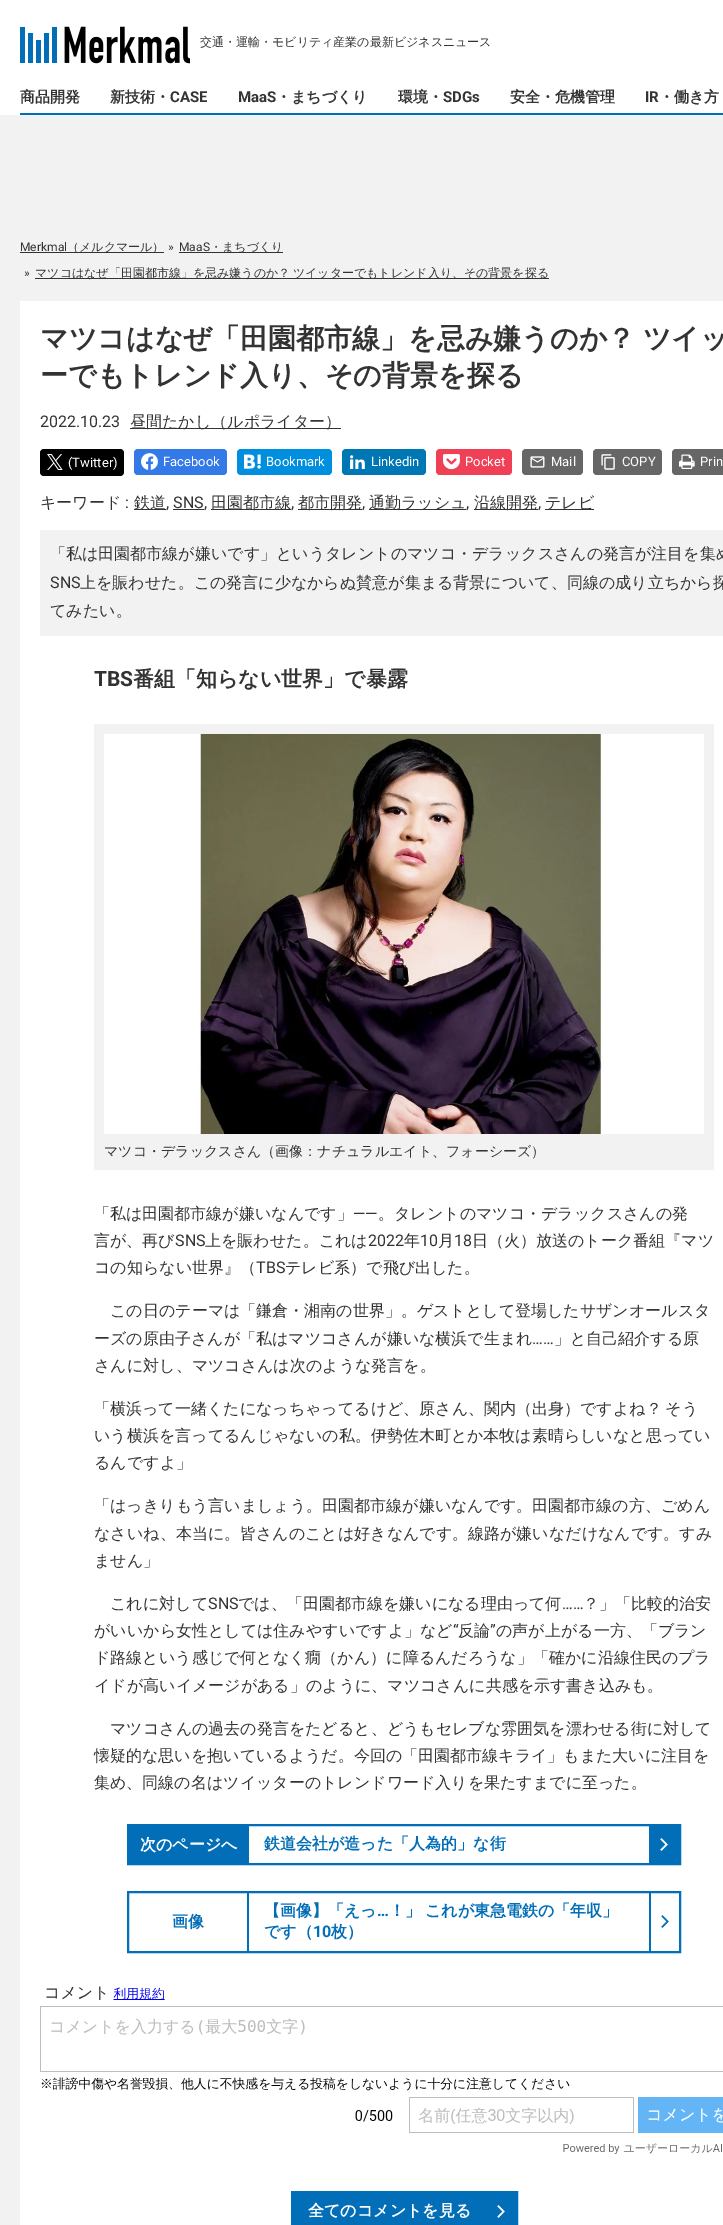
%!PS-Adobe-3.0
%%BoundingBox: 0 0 723 2225
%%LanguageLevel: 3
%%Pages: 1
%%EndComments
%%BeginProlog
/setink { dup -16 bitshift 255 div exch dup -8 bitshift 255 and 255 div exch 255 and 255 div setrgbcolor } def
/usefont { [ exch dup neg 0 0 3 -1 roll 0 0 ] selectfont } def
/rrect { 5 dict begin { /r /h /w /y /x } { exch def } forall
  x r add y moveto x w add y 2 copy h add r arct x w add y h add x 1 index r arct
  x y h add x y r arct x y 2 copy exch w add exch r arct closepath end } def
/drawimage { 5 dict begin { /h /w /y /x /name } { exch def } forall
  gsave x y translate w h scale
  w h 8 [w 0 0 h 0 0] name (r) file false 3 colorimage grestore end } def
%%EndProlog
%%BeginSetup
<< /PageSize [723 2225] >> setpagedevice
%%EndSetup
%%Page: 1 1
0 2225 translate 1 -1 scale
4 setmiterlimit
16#F2F2F2 setink
0 0 723 2225 rectfill
16#FFFFFF setink
0 0 723 115 rectfill
(img1.raw) 20 26 170 38 drawimage
/WenQuanYiZenHei-Medium 12 usefont
16#333333 setink
200 46 moveto (交通・運輸・モビリティ産業の最新ビジネスニュース) show
/WenQuanYiZenHei-Bold 15 usefont
20 102 moveto (商品開発) show
110 102 moveto (新技術・) show
/Roboto-Bold 15 usefont
170 102 moveto (CASE) show
238 102 moveto (MaaS) show
/WenQuanYiZenHei-Bold 15 usefont
276 102 moveto (・まちづくり) show
398 102 moveto (環境・) show
/Roboto-Bold 15 usefont
443 102 moveto (SDGs) show
/WenQuanYiZenHei-Bold 15 usefont
510 102 moveto (安全・危機管理) show
/Roboto-Bold 15 usefont
645 102 moveto (IR) show
/WenQuanYiZenHei-Bold 15 usefont
659 102 moveto (・働き方) show
16#036EB8 setink
20 113 703 2 rectfill
/Roboto-Regular 12 usefont
16#333333 setink
20 251 moveto (Merkmal) show
20 252 144 1 rectfill
/WenQuanYiZenHei-Medium 12 usefont
67 251 moveto (（メルクマール）) show
/Roboto-Regular 12 usefont
168 251 moveto (») show
179 251 moveto (MaaS) show
179 252 104 1 rectfill
/WenQuanYiZenHei-Medium 12 usefont
210 251 moveto (・まちづくり) show
/Roboto-Regular 12 usefont
24 277 moveto (») show
35 278 514 1 rectfill
/WenQuanYiZenHei-Medium 12 usefont
35 277 moveto -1 0 32 (マツコはなぜ「田園都市線」を忌み嫌うのか？ ツイッターでもトレンド入り、その背景を探る) widthshow
16#FFFFFF setink
20 301 703 1924 rectfill
/WenQuanYiZenHei-Bold 28 usefont
16#333333 setink
40 348 moveto -1 0 32 (マツコはなぜ「田園都市線」を忌み嫌うのか？ ツイッ) widthshow
40 385 moveto (ーでもトレンド入り、その背景を探る) show
/Roboto-Regular 16 usefont
40 427 moveto (2022.10.23) show
130 428 211 1 rectfill
/WenQuanYiZenHei-Medium 16 usefont
130 427 moveto (昼間たかし（ルポライター）) show
16#000000 setink
40 449 84 27 4 rrect fill
(img2.raw) 47 454 16 16 drawimage
/Roboto-Regular 13 usefont
16#FFFFFF setink
68 467 moveto (\(Twitter\)) show
16#3379E7 setink
134 449 93 26 4 rrect fill
(img3.raw) 141 453 17 17 drawimage
16#FFFFFF setink
163 466 moveto (Facebook) show
16#008FDE setink
237 449 95 26 4 rrect fill
(img4.raw) 244 454 17 15 drawimage
16#FFFFFF setink
266 466 moveto (Bookmark) show
16#0077B5 setink
342 449 84 26 4 rrect fill
(img5.raw) 350 455 15 14 drawimage
16#FFFFFF setink
371 466 moveto (Linkedin) show
16#EF4056 setink
436 449 76 26 4 rrect fill
(img6.raw) 443 454 17 16 drawimage
16#FFFFFF setink
465 466 moveto (Pocket) show
16#666666 setink
522 449 61 26 4 rrect fill
(img7.raw) 530 456 15 12 drawimage
16#FFFFFF setink
551 466 moveto (Mail) show
16#666666 setink
593 449 69 26 4 rrect fill
(img8.raw) 601 454 14 16 drawimage
16#FFFFFF setink
622 466 moveto (COPY) show
16#666666 setink
672 449 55 26 4 rrect fill
(img9.raw) 679 454 16 15 drawimage
16#FFFFFF setink
700 466 moveto (Prin) show
/WenQuanYiZenHei-Medium 16 usefont
16#333333 setink
40 508 moveto (キーワード) show
/Roboto-Regular 16 usefont
125 508 moveto (:) show
134 509 32 1 rectfill
/WenQuanYiZenHei-Medium 16 usefont
134 508 moveto (鉄道) show
/Roboto-Regular 16 usefont
166 508 moveto (, SNS) show
173 509 31 1 rectfill
204 508 moveto (,) show
211 509 80 1 rectfill
/WenQuanYiZenHei-Medium 16 usefont
211 508 moveto (田園都市線) show
/Roboto-Regular 16 usefont
291 508 moveto (,) show
298 509 64 1 rectfill
/WenQuanYiZenHei-Medium 16 usefont
298 508 moveto (都市開発) show
/Roboto-Regular 16 usefont
362 508 moveto (,) show
369 509 97 1 rectfill
/WenQuanYiZenHei-Medium 16 usefont
369 508 moveto (通勤ラッシュ) show
/Roboto-Regular 16 usefont
466 508 moveto (,) show
474 509 64 1 rectfill
/WenQuanYiZenHei-Medium 16 usefont
474 508 moveto (沿線開発) show
/Roboto-Regular 16 usefont
538 508 moveto (,) show
545 509 49 1 rectfill
/WenQuanYiZenHei-Medium 16 usefont
545 508 moveto (テレビ) show
16#F2F2F2 setink
40 530 683 106 rectfill
16#333333 setink
50 559 moveto (「私は田園都市線が嫌いです」というタレントのマツコ・デラックスさんの発言が注目を集め) show
/Roboto-Regular 16 usefont
50 588 moveto (SNS) show
/WenQuanYiZenHei-Medium 16 usefont
80 588 moveto (上を賑わせた。この発言に少なからぬ賛意が集まる背景について、同線の成り立ちから探) show
50 616 moveto (てみたい。) show
/Roboto-Bold 21 usefont
94 686 moveto (TBS) show
/WenQuanYiZenHei-Bold 21 usefont
133 686 moveto (番組「知らない世界」で暴露) show
16#F2F2F2 setink
94 724 620 446 rectfill
(img10.raw) 104 734 600 400 drawimage
/WenQuanYiZenHei-Medium 14 usefont
16#333333 setink
104 1156 moveto (マツコ・デラックスさん（画像：ナチュラルエイト、フォーシーズ）) show
/WenQuanYiZenHei-Medium 16 usefont
94 1219 moveto (「私は田園都市線が嫌いなんです」) show
/Roboto-Regular 16 usefont
353 1219 moveto (――) show
/WenQuanYiZenHei-Medium 16 usefont
378 1219 moveto (。タレントのマツコ・デラックスさんの発) show
94 1246 moveto (言が、再び) show
/Roboto-Regular 16 usefont
175 1246 moveto (SNS) show
/WenQuanYiZenHei-Medium 16 usefont
205 1246 moveto (上を賑わせた。これは) show
/Roboto-Regular 16 usefont
368 1246 moveto (2022) show
/WenQuanYiZenHei-Medium 16 usefont
404 1246 moveto (年) show
/Roboto-Regular 16 usefont
420 1246 moveto (10) show
/WenQuanYiZenHei-Medium 16 usefont
438 1246 moveto (月) show
/Roboto-Regular 16 usefont
454 1246 moveto (18) show
/WenQuanYiZenHei-Medium 16 usefont
472 1246 moveto (日（火）放送のトーク番組『マツ) show
94 1273 moveto (コの知らない世界』（) show
/Roboto-Regular 16 usefont
256 1273 moveto (TBS) show
/WenQuanYiZenHei-Medium 16 usefont
[
    [(テレビ系）で飛び出した。) 285 1273]
    [(この日のテーマは「鎌倉・湘南の世界」。ゲストとして登場したサザンオールスタ) 110 1316]
    [(ーズの原由子さんが「私はマツコさんが嫌いな横浜で生まれ) 94 1344]
] { aload pop moveto show } forall
/Roboto-Regular 16 usefont
532 1344 moveto (……) show
/WenQuanYiZenHei-Medium 16 usefont
554 1344 moveto (」と自己紹介する原) show
94 1371 moveto (さんに対し、マツコさんは次のような発言を。) show
94 1414 moveto -1 0 32 (「横浜って一緒くたになっちゃってるけど、原さん、関内（出身）ですよね？ そう) widthshow
[
    [(いう横浜を言ってるんじゃないの私。伊勢佐木町とか本牧は素晴らしいなと思ってい) 94 1441]
    [(るんですよ」) 94 1468]
    [(「はっきりもう言いましょう。田園都市線が嫌いなんです。田園都市線の方、ごめん) 94 1511]
    [(なさいね、本当に。皆さんのことは好きなんです。線路が嫌いなだけなんです。すみ) 94 1539]
    [(ません」) 94 1566]
    [(これに対して) 110 1609]
] { aload pop moveto show } forall
/Roboto-Regular 16 usefont
208 1609 moveto (SNS) show
/WenQuanYiZenHei-Medium 16 usefont
238 1609 moveto (では、「田園都市線を嫌いになる理由って何) show
/Roboto-Regular 16 usefont
562 1609 moveto (……) show
/WenQuanYiZenHei-Medium 16 usefont
583 1609 moveto (？」「比較的治安) show
94 1636 moveto (がいいから女性としては住みやすいですよ」など) show
/Roboto-Regular 16 usefont
453 1636 moveto (“) show
/WenQuanYiZenHei-Medium 16 usefont
458 1636 moveto (反論) show
/Roboto-Regular 16 usefont
490 1636 moveto (”) show
/WenQuanYiZenHei-Medium 16 usefont
[
    [(の声が上がる一方、「ブラン) 496 1636]
    [(ド路線という感じで何となく癇（かん）に障るんだろうな」「確かに沿線住民のプラ) 94 1663]
    [(イドが高いイメージがある」のように、マツコさんに共感を示す書き込みも。) 94 1691]
    [(マツコさんの過去の発言をたどると、どうもセレブな雰囲気を漂わせる街に対して) 110 1734]
    [(懐疑的な思いを抱いているようだ。今回の「田園都市線キライ」もまた大いに注目を) 94 1761]
    [(集め、同線の名はツイッターのトレンドワード入りを果たすまでに至った。) 94 1788]
] { aload pop moveto show } forall
16#036EB8 setink
2 setlinewidth
128 1825 552 39 rectstroke
129 1826 120 37 rectfill
/WenQuanYiZenHei-Bold 16 usefont
16#FFFFFF setink
140 1850 moveto (次のページへ) show
16#036EB8 setink
264 1849 moveto (鉄道会社が造った「人為的」な街) show
649 1826 30 37 rectfill
(img11.raw) 660 1838 8 13 drawimage
128 1892 552 60 rectstroke
247 1893 2 58 rectfill
172 1927 moveto (画像) show
264 1916 moveto (【画像】「えっ) show
/Roboto-Bold 16 usefont
377 1916 moveto (…) show
/WenQuanYiZenHei-Bold 16 usefont
389 1916 moveto -1 0 32 (！」 これが東急電鉄の「年収」) widthshow
264 1937 moveto (です（) show
/Roboto-Bold 16 usefont
313 1937 moveto (10) show
/WenQuanYiZenHei-Bold 16 usefont
331 1937 moveto (枚）) show
(img12.raw) 661 1915 8 13 drawimage
649 1893 2 58 rectfill
(img13.raw) 40 1986 683 168 drawimage
292 2192 225 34 rectstroke
293 2193 223 32 rectfill
16#FFFFFF setink
308 2216 moveto (全てのコメントを見る) show
(img11.raw) 497 2205 8 13 drawimage
showpage
%%EOF
